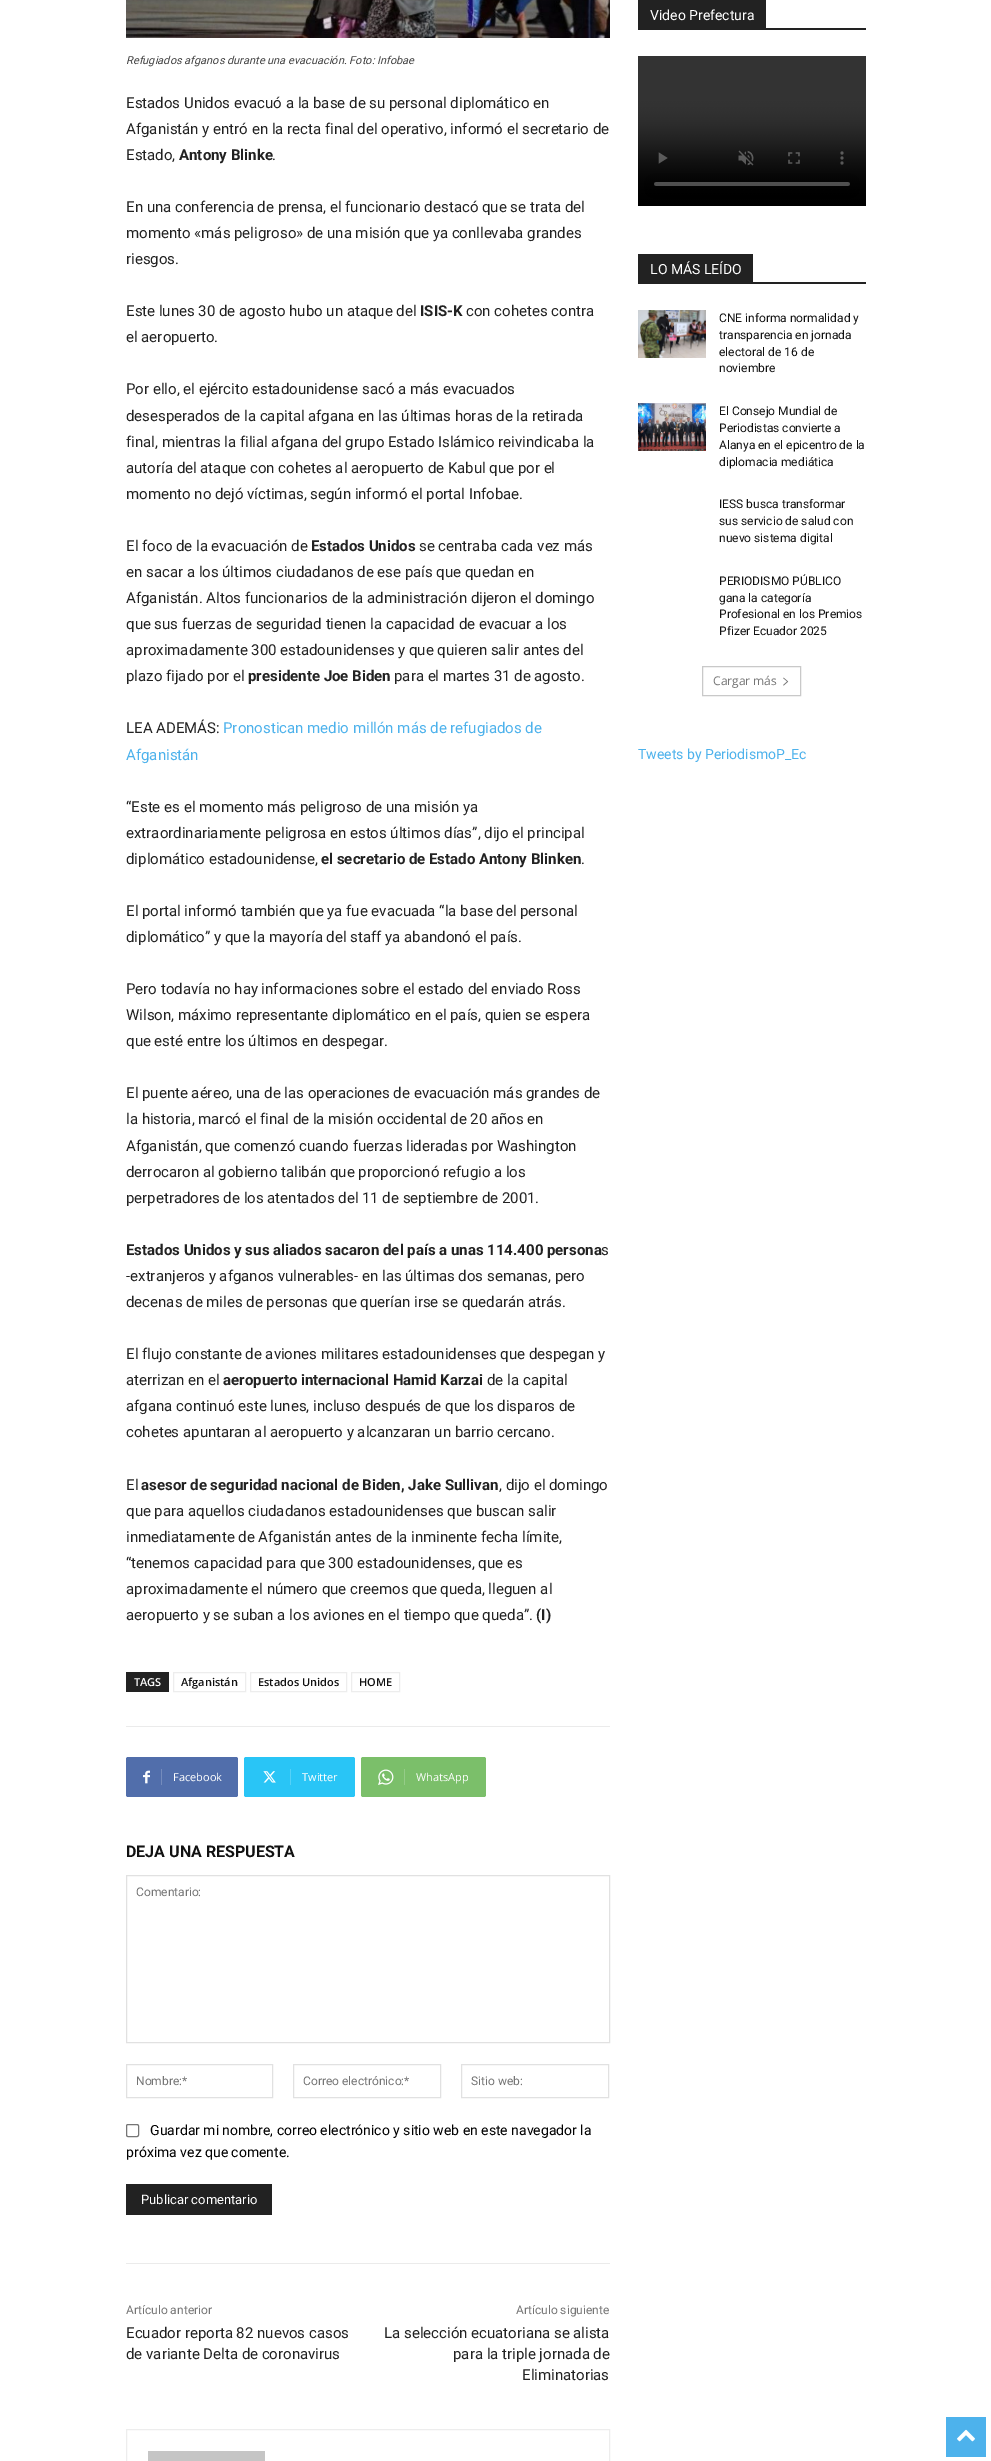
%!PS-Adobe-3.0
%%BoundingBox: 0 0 991 2461
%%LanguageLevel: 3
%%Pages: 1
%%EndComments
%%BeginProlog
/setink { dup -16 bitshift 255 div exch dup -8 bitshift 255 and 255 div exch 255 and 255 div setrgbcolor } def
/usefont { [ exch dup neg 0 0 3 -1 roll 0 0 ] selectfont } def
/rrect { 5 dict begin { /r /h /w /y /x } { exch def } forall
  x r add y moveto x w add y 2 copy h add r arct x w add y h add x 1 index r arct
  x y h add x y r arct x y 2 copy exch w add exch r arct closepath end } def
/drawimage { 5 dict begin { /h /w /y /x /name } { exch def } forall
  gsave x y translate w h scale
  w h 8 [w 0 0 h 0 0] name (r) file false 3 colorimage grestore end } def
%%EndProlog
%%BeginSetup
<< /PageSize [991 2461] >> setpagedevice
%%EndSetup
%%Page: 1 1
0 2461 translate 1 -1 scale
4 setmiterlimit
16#FFFFFF setink
0 0 991 2461 rectfill
(img1.raw) 126 0 484 38 drawimage
/Roboto-Italic 11 usefont
16#444444 setink
126 64 moveto (Refugiados afganos durante una evacuación. Foto: Infobae) show
/Roboto-Regular 15 usefont
16#222222 setink
[
    [(Estados Unidos evacuó a la base de su personal diplomático en) 126 108]
    [(Afganistán y entró en la recta final del operativo, informó el secretario de) 126 134]
    [(Estado,) 126 160]
] { aload pop moveto show } forall
/Roboto-Bold 15 usefont
179 160 moveto (Antony Blinke) show
/Roboto-Regular 15 usefont
[
    [(.) 272 160]
    [(En una conferencia de prensa, el funcionario destacó que se trata del) 126 212]
    [(momento «más peligroso» de una misión que ya conllevaba grandes) 126 238]
    [(riesgos.) 126 264]
    [(Este lunes 30 de agosto hubo un ataque del) 126 316]
] { aload pop moveto show } forall
/Roboto-Bold 15 usefont
420 316 moveto (ISIS-K) show
/Roboto-Regular 15 usefont
[
    [(con cohetes contra) 466 316]
    [(el aeropuerto.) 126 342]
    [(Por ello, el ejército estadounidense sacó a más evacuados) 126 394]
    [(desesperados de la capital afgana en las últimas horas de la retirada) 126 421]
    [(final, mientras la filial afgana del grupo Estado Islámico reivindicaba la) 126 447]
    [(autoría del ataque con cohetes al aeropuerto de Kabul que por el) 126 473]
    [(momento no dejó víctimas, según informó el portal Infobae.) 126 499]
    [(El foco de la evacuación de) 126 551]
] { aload pop moveto show } forall
/Roboto-Bold 15 usefont
311 551 moveto (Estados Unidos) show
/Roboto-Regular 15 usefont
[
    [(se centraba cada vez más) 419 551]
    [(en sacar a los últimos ciudadanos de ese país que quedan en) 126 577]
    [(Afganistán. Altos funcionarios de la administración dijeron el domingo) 126 603]
    [(que sus fuerzas de seguridad tienen la capacidad de evacuar a los) 126 629]
    [(aproximadamente 300 estadounidenses y que quieren salir antes del) 126 655]
    [(plazo fijado por el) 126 681]
] { aload pop moveto show } forall
/Roboto-Bold 15 usefont
248 681 moveto (presidente Joe Biden) show
/Roboto-Regular 15 usefont
394 681 moveto (para el martes 31 de agosto.) show
126 733 moveto (LEA ADEMÁS:) show
16#4DB2EC setink
223 733 moveto (Pronostican medio millón más de refugiados de) show
126 760 moveto (Afganistán) show
16#222222 setink
[
    [(“Este es el momento más peligroso de una misión ya) 126 812]
    [(extraordinariamente peligrosa en estos últimos días”, dijo el principal) 126 838]
    [(diplomático estadounidense,) 126 864]
] { aload pop moveto show } forall
/Roboto-Bold 15 usefont
321 864 moveto (el secretario de Estado Antony Blinken) show
/Roboto-Regular 15 usefont
[
    [(.) 581 864]
    [(El portal informó también que ya fue evacuada “la base del personal) 126 916]
    [(diplomático” y que la mayoría del staff ya abandonó el país.) 126 942]
    [(Pero todavía no hay informaciones sobre el estado del enviado Ross) 126 994]
    [(Wilson, máximo representante diplomático en el país, quien se espera) 126 1020]
    [(que esté entre los últimos en despegar.) 126 1046]
    [(El puente aéreo, una de las operaciones de evacuación más grandes de) 126 1098]
    [(la historia, marcó el final de la misión occidental de 20 años en) 126 1124]
    [(Afganistán, que comenzó cuando fuerzas lideradas por Washington) 126 1151]
    [(derrocaron al gobierno talibán que proporcionó refugio a los) 126 1177]
    [(perpetradores de los atentados del 11 de septiembre de 2001.) 126 1203]
] { aload pop moveto show } forall
/Roboto-Bold 15 usefont
126 1255 moveto (Estados Unidos y sus aliados sacaron del país a unas 114.400 persona) show
/Roboto-Regular 15 usefont
[
    [(s) 601 1255]
    [(-extranjeros y afganos vulnerables- en las últimas dos semanas, pero) 126 1281]
    [(decenas de miles de personas que querían irse se quedarán atrás.) 126 1307]
    [(El flujo constante de aviones militares estadounidenses que despegan y) 126 1359]
    [(aterrizan en el) 126 1385]
] { aload pop moveto show } forall
/Roboto-Bold 15 usefont
223 1385 moveto (aeropuerto internacional Hamid Karzai) show
/Roboto-Regular 15 usefont
[
    [(de la capital) 487 1385]
    [(afgana continuó este lunes, incluso después de que los disparos de) 126 1411]
    [(cohetes apuntaran al aeropuerto y alcanzaran un barrio cercano.) 126 1437]
    [(El) 126 1490]
] { aload pop moveto show } forall
/Roboto-Bold 15 usefont
141 1490 moveto (asesor de seguridad nacional de Biden, Jake Sullivan) show
/Roboto-Regular 15 usefont
[
    [(, dijo el domingo) 499 1490]
    [(que para aquellos ciudadanos estadounidenses que buscan salir) 126 1516]
    [(inmediatamente de Afganistán antes de la inminente fecha límite,) 126 1542]
    [(“tenemos capacidad para que 300 estadounidenses, que es) 126 1568]
    [(aproximadamente el número que creemos que queda, lleguen al) 126 1594]
    [(aeropuerto y se suban a los aviones en el tiempo que queda”.) 126 1620]
] { aload pop moveto show } forall
/Roboto-Bold 15 usefont
536 1620 moveto (\(I\)) show
126 1672 43 20 rectfill
/OpenSans-SemiBold 11 usefont
16#FFFFFF setink
134 1686 moveto (TAGS) show
16#EDEDED setink
173.5 1672.5 72 19 rectstroke
16#111111 setink
181 1686 moveto (Afganistán) show
16#EDEDED setink
250.5 1672.5 96 19 rectstroke
16#111111 setink
258 1686 moveto (Estados Unidos) show
16#EDEDED setink
351.5 1672.5 48 19 rectstroke
16#111111 setink
359 1686 moveto (HOME) show
16#EBEBEB setink
126 1726 484 1 rectfill
16#516EAB setink
161 1757 moveto 236 1757 lineto 237 1757 238 1758 238 1759 curveto 238 1795 lineto 238 1796 237 1797 236 1797 curveto 161 1797 lineto closepath fill
128 1757 moveto 167 1757 lineto 167 1797 lineto 128 1797 lineto 127 1797 126 1796 126 1795 curveto 126 1759 lineto 126 1758 127 1757 128 1757 curveto closepath fill
(img2.raw) 143 1770 7 14 drawimage
16#748BBC setink
161 1769 1 16 rectfill
/OpenSans-Regular 11 usefont
16#FFFFFF setink
173 1781 moveto (Facebook) show
16#29C5F6 setink
290 1757 moveto 353 1757 lineto 354 1757 355 1758 355 1759 curveto 355 1795 lineto 355 1796 354 1797 353 1797 curveto 290 1797 lineto closepath fill
246 1757 moveto 296 1757 lineto 296 1797 lineto 246 1797 lineto 245 1797 244 1796 244 1795 curveto 244 1759 lineto 244 1758 245 1757 246 1757 curveto closepath fill
(img3.raw) 263 1771 13 12 drawimage
16#54D1F8 setink
290 1769 1 16 rectfill
16#FFFFFF setink
302 1781 moveto (Twitter) show
16#7BBF6A setink
404 1757 moveto 484 1757 lineto 485 1757 486 1758 486 1759 curveto 486 1795 lineto 486 1796 485 1797 484 1797 curveto 404 1797 lineto closepath fill
363 1757 moveto 410 1757 lineto 410 1797 lineto 363 1797 lineto 362 1797 361 1796 361 1795 curveto 361 1759 lineto 361 1758 362 1757 363 1757 curveto closepath fill
(img4.raw) 378 1769 16 16 drawimage
16#95CC88 setink
404 1769 1 16 rectfill
16#FFFFFF setink
416 1781 moveto (WhatsApp) show
/Roboto-Bold 16 usefont
16#111111 setink
126 1857 moveto (DEJA UNA RESPUESTA) show
16#E1E1E1 setink
126.5 1875.5 483 167 rectstroke
/Roboto-Regular 12 usefont
16#757575 setink
136 1896 moveto (Comentario:) show
16#E1E1E1 setink
126.5 2064.5 146 33 rectstroke
16#757575 setink
136 2085 moveto (Nombre:*) show
16#E1E1E1 setink
293.5 2064.5 147 33 rectstroke
16#757575 setink
303 2085 moveto (Correo electrónico:*) show
16#E1E1E1 setink
461.5 2064.5 147 33 rectstroke
16#757575 setink
471 2085 moveto (Sitio web:) show
16#767676 setink
126.5 2124.5 12 12 1.5 rrect stroke
/Roboto-Regular 14 usefont
16#000000 setink
150 2135 moveto (Guardar mi nombre, correo electrónico y sitio web en este navegador la) show
126 2157 moveto (próxima vez que comente.) show
16#222222 setink
126 2184 146 31 rectfill
/Roboto-Regular 13 usefont
16#FFFFFF setink
141 2204 moveto (Publicar comentario) show
16#EBEBEB setink
126 2263 484 1 rectfill
/Roboto-Regular 12 usefont
16#757575 setink
126 2314 moveto (Artículo anterior) show
/Roboto-Regular 15 usefont
16#222222 setink
126 2338 moveto (Ecuador reporta 82 nuevos casos) show
126 2359 moveto (de variante Delta de coronavirus) show
/Roboto-Regular 12 usefont
16#757575 setink
516 2314 moveto (Artículo siguiente) show
/Roboto-Regular 15 usefont
16#222222 setink
[
    [(La selección ecuatoriana se alista) 384 2338]
    [(para la triple jornada de) 453 2359]
    [(Eliminatorias) 522 2380]
] { aload pop moveto show } forall
16#EDEDED setink
126.5 2429.5 483 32 rectstroke
[
    [148 2451 117 10 16#C5C5C5]
    [638 28 228 2 16#222222]
    [638 0 128 28 16#222222]
] { aload pop setink rectfill } forall
/Roboto-Regular 14 usefont
16#FFFFFF setink
650 20 moveto (Video Prefectura) show
(img5.raw) 638 56 228 150 drawimage
16#222222 setink
638 282 228 2 rectfill
638 254 115 28 rectfill
16#FFFFFF setink
650 274 moveto (LO MÁS LEÍDO) show
(img6.raw) 638 310 68 48 drawimage
/Roboto-Regular 12 usefont
16#111111 setink
[
    [(CNE informa normalidad y) 719 322]
    [(transparencia en jornada) 719 339]
    [(electoral de 16 de) 719 356]
    [(noviembre) 719 372]
] { aload pop moveto show } forall
(img7.raw) 638 403 68 48 drawimage
[
    [(El Consejo Mundial de) 719 415]
    [(Periodistas convierte a) 719 432]
    [(Alanya en el epicentro de la) 719 449]
    [(diplomacia mediática) 719 466]
    [(IESS busca transformar) 719 508]
    [(sus servicio de salud con) 719 525]
    [(nuevo sistema digital) 719 542]
    [(PERIODISMO PÚBLICO) 719 585]
    [(gana la categoría) 719 602]
    [(Profesional en los Premios) 719 618]
    [(Pfizer Ecuador 2025) 719 635]
] { aload pop moveto show } forall
16#C9C9C9 setink
702.5 666.5 98 29 rectstroke
/OpenSans-Regular 12 usefont
16#757575 setink
713 685 moveto (Cargar más) show
(img8.raw) 783 677 6 9 drawimage
/Roboto-Regular 14 usefont
16#4DB2EC setink
638 759 moveto (Tweets by PeriodismoP_Ec) show
946 2417 40 40 rectfill
(img9.raw) 957 2429 18 13 drawimage
showpage
%%EOF
